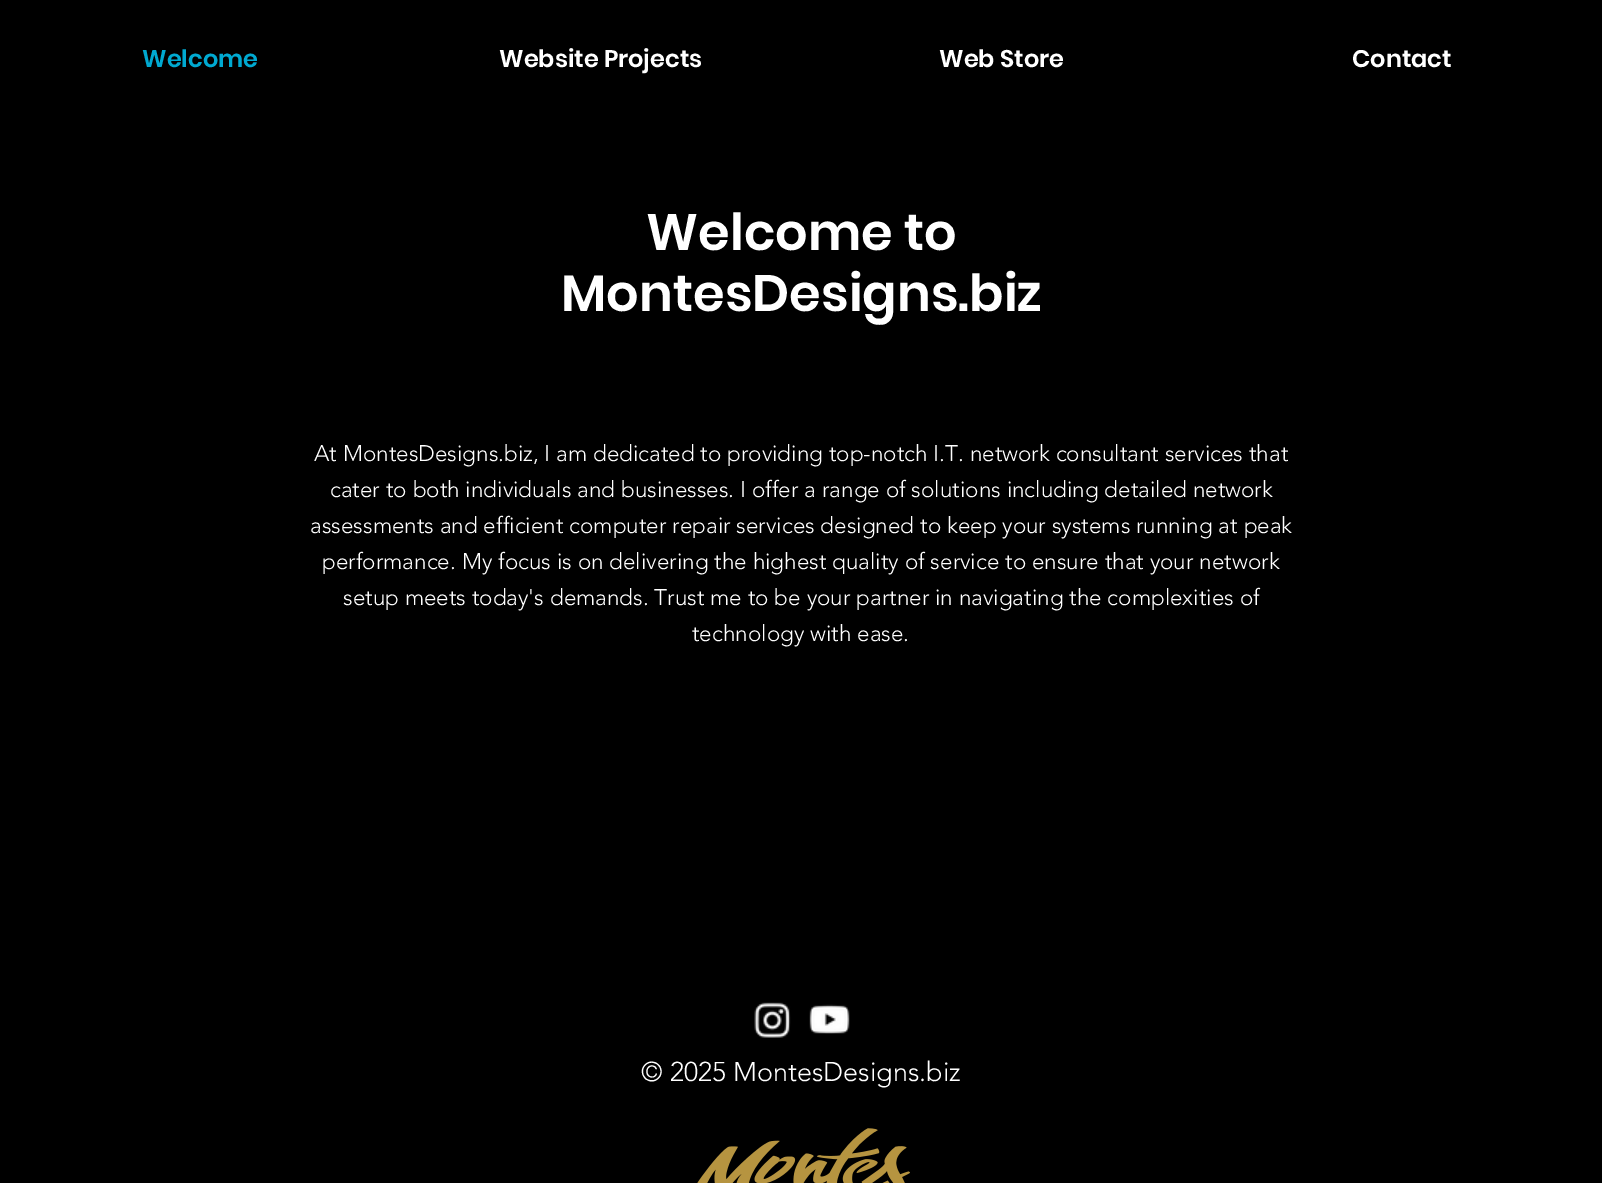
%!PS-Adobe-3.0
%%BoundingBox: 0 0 1602 1183
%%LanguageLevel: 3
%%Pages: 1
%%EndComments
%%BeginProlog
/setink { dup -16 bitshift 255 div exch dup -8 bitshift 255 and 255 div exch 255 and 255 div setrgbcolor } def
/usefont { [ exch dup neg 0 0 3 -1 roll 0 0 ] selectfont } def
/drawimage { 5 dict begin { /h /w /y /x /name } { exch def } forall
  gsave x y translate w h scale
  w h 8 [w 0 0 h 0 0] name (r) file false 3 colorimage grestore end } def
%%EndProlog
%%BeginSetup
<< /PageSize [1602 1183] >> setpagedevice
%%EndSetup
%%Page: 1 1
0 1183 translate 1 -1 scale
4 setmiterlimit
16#000000 setink
0 0 1602 1183 rectfill
/Poppins-SemiBold 24 usefont
16#00A9D1 setink
142 67 moveto (Welcome) show
16#FFFFFF setink
[
    [(Website Projects) 499 67]
    [(Web Store) 939 67]
    [(Contact) 1352 67]
] { aload pop moveto show } forall
/Poppins-SemiBold 51 usefont
646 250 moveto (Welcome to) show
561 311 moveto (MontesDesigns.biz) show
/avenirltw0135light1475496-Light 22.5 usefont
[
    [(At MontesDesigns.biz, I am dedicated to providing top-notch I.T. network consultant services that) 314 461]
    [(cater to both individuals and businesses. I offer a range of solutions including detailed network) 330 497]
    [(assessments and efficient computer repair services designed to keep your systems running at peak) 310 533]
    [(performance. My focus is on delivering the highest quality of service to ensure that your network) 322 569]
    [(setup meets today's demands. Trust me to be your partner in navigating the complexities of) 343 605]
    [(technology with ease.) 692 641]
] { aload pop moveto show } forall
(img1.raw) 754 1002 37 36 drawimage
(img2.raw) 809 1004 41 30 drawimage
/avenirltw0135light1475496-Light 27 usefont
641 1081 moveto (© 2025 MontesDesigns.biz) show
(img3.raw) 697 1128 213 55 drawimage
showpage
%%EOF
